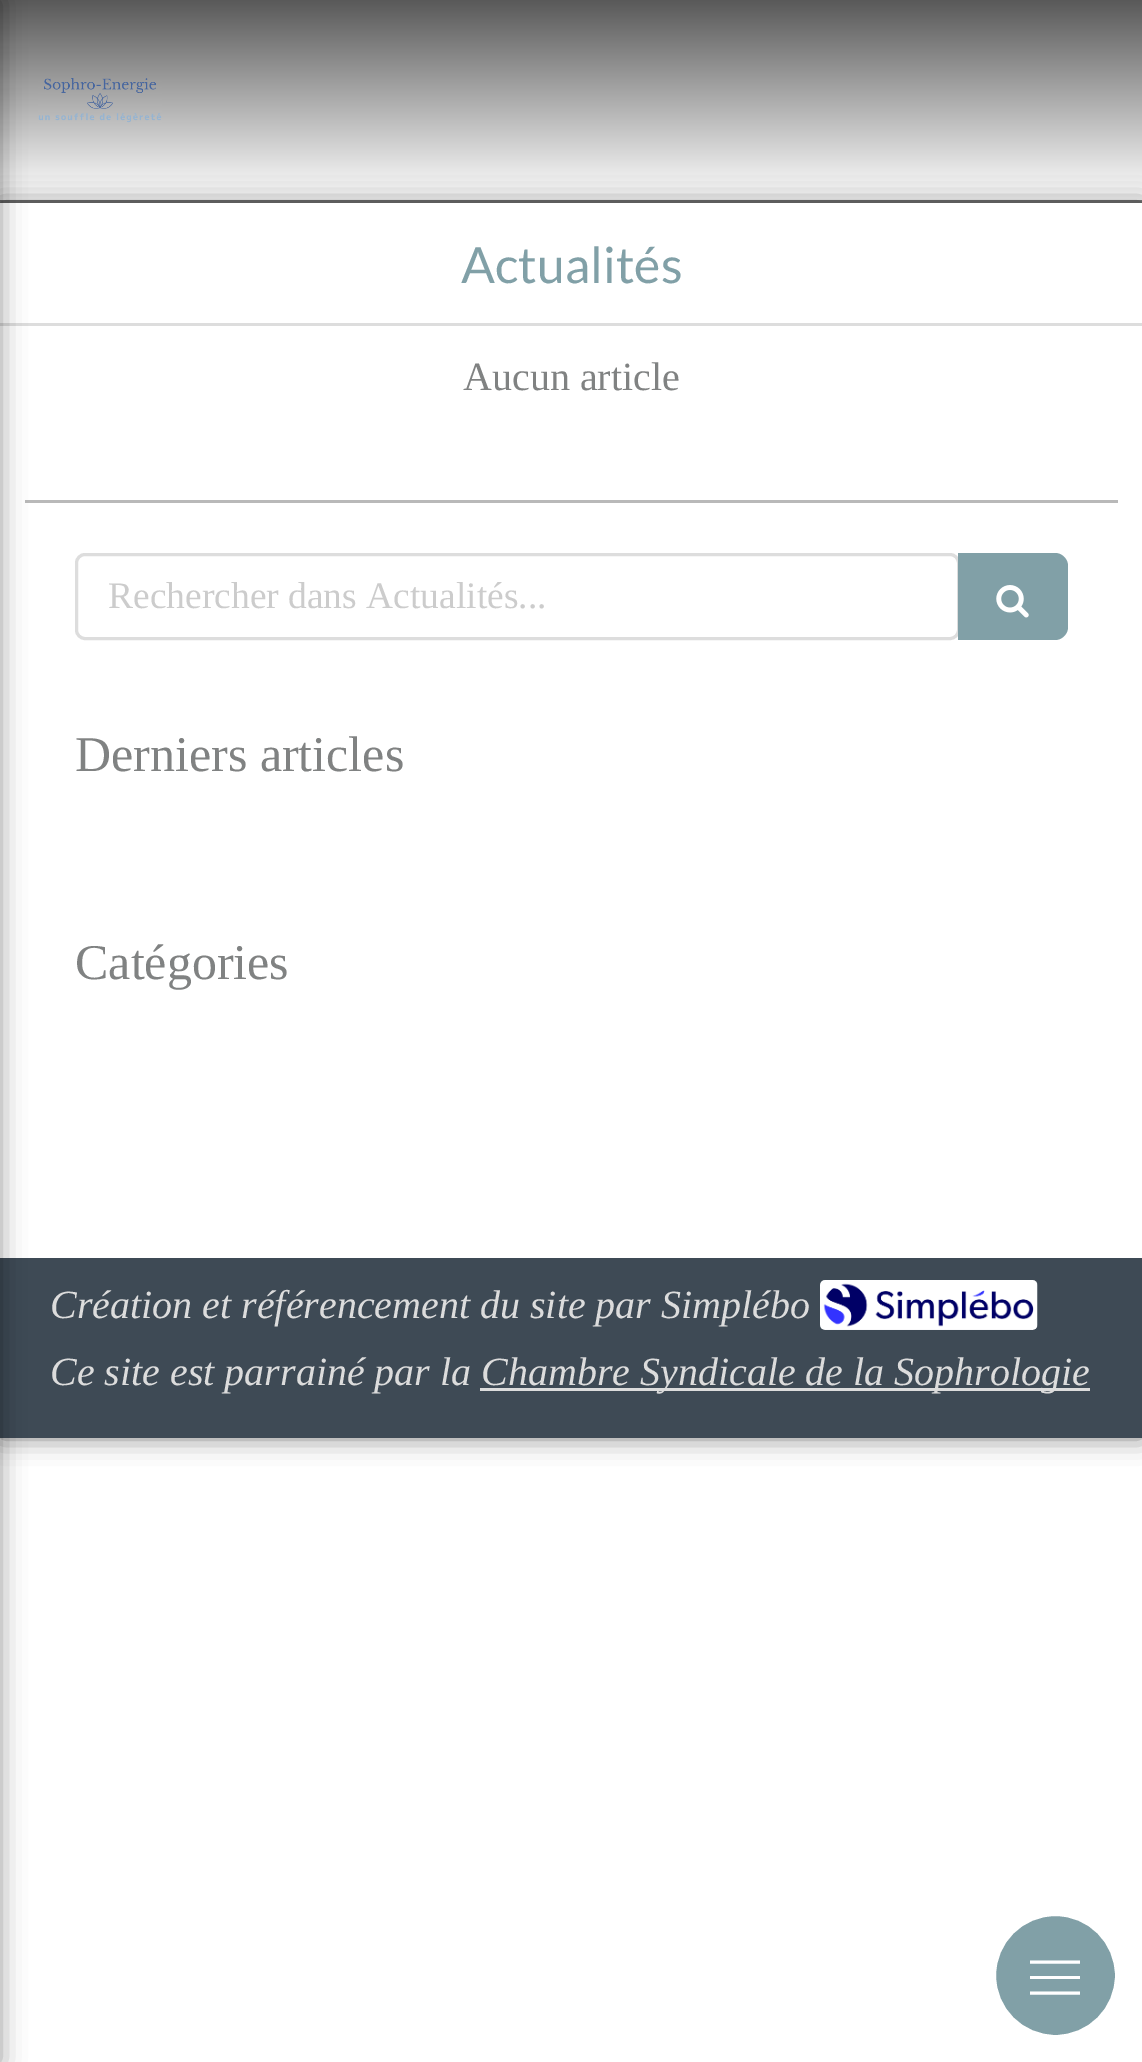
%!PS-Adobe-3.0
%%BoundingBox: 0 0 1142 2062
%%LanguageLevel: 3
%%Pages: 1
%%EndComments
%%BeginProlog
/setink { dup -16 bitshift 255 div exch dup -8 bitshift 255 and 255 div exch 255 and 255 div setrgbcolor } def
/usefont { [ exch dup neg 0 0 3 -1 roll 0 0 ] selectfont } def
/setalpha { dup .setfillconstantalpha .setstrokeconstantalpha } def
/disc { newpath 0 360 arc closepath } def
/rrect { 5 dict begin { /r /h /w /y /x } { exch def } forall
  x r add y moveto x w add y 2 copy h add r arct x w add y h add x 1 index r arct
  x y h add x y r arct x y 2 copy exch w add exch r arct closepath end } def
/softshadow { 12 dict begin { /a /b /q /h /w /y /x } { exch def } forall gsave /was 0 def
  9 -2 -9 { dup b mul 4 div /e exch def 1 sub .425 mul 2.718 exch exp 1 add a .99 .min exch div /now exch def
    1 1 now sub 1 was sub div sub setalpha /was now def
    w h .min e 2 mul add 0 gt { x e sub y e sub w e 2 mul add h e 2 mul add
      q e add b .6 mul add w h .min 2 div e add .min 0 .max rrect fill } if } for grestore end } def
/drawimage { 5 dict begin { /h /w /y /x /name } { exch def } forall
  gsave x y translate w h scale
  w h 8 [w 0 0 h 0 0] name (r) file false 3 colorimage grestore end } def
%%EndProlog
%%BeginSetup
<< /PageSize [1142 2062] /PageUsesTransparency true >> setpagedevice
%%EndSetup
%%Page: 1 1
0 .pushpdf14devicefilter
0 2062 translate 1 -1 scale
4 setmiterlimit
16#FFFFFF setink
0 0 1142 2062 rectfill
gsave 0 0 moveto 1142 0 lineto 1142 197 lineto 0 197 lineto closepath clip newpath
<< /ShadingType 2 /ColorSpace /DeviceRGB /Coords [571 0 571 200] /Extend [true true] /Function << /FunctionType 2 /Domain [0 1] /C0 [0.349 0.349 0.349] /C1 [1 1 1] /N 1 >> >> shfill grestore
16#7B7B7B setink
0 200 1142 3 rectfill
(img1.raw) 38 78 124 45 drawimage
16#000000 setink
0 203 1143 1235 0 12.5 0.5 softshadow
[
    [0 1258 1142 180 16#3E4A55]
    [0 203 1142 1055 16#FFFFFF]
    [0 323 1142 3 16#DDDDDD]
    [25 500 1093 3 16#B9B9B9]
] { aload pop setink rectfill } forall
16#000000 setink
-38 0 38 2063 0 12.5 0.4 softshadow
/Lato-Regular 50 usefont
16#81A0A7 setink
461 283 moveto (Actualités) show
/LiberationSerif-Regular 40 usefont
16#808282 setink
463 390 moveto (Aucun article) show
16#DDDDDD setink
3 setlinewidth
76.5 554.5 882 84 8.5 rrect stroke
/LiberationSerif-Regular 37.5 usefont
16#CCCCCC setink
108 608 moveto (Rechercher dans Actualités...) show
16#81A0A7 setink
958 553 moveto 1055 553 lineto 1062 553 1068 559 1068 566 curveto 1068 627 lineto 1068 634 1062 640 1055 640 curveto 958 640 lineto closepath fill
(img2.raw) 996 585 33 33 drawimage
/LiberationSerif-Regular 50 usefont
16#808282 setink
75 771 moveto (Derniers articles) show
75 979 moveto (Catégories) show
/LiberationSerif-Italic 40 usefont
16#DCDCDC setink
50 1318 moveto (Création et référencement du site par Simplébo) show
(img3.raw) 820 1280 218 50 drawimage
50 1385 moveto (Ce site est parrainé par la) show
480 1388 610 3 rectfill
481 1385 moveto (Chambre Syndicale de la Sophrologie) show
16#81A0A7 setink
1055.5 1975.5 61 disc gsave fill grestore
16#FFFFFF setink
stroke
1030 1976 50 3 rectfill
1030 1962 moveto 1080 1962 lineto 1030 1993 moveto 1080 1993 lineto stroke
.poppdf14devicefilter showpage
%%EOF
